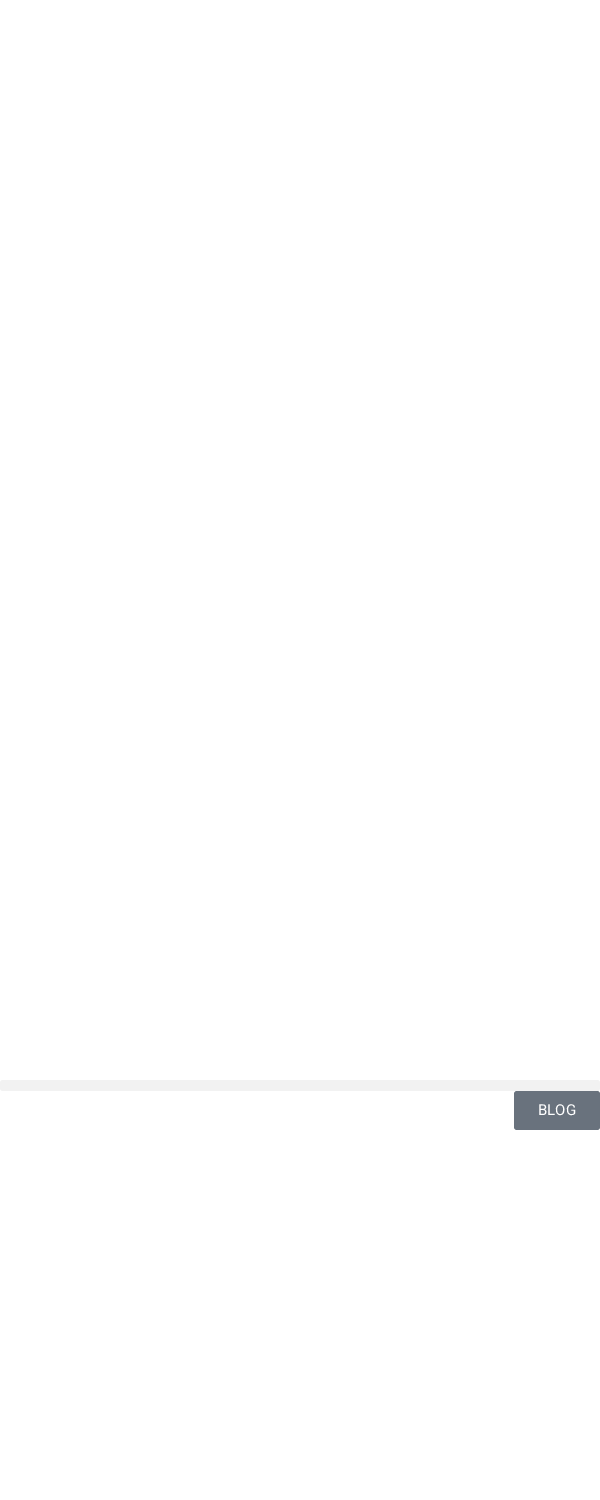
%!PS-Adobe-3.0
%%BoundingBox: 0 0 600 1500
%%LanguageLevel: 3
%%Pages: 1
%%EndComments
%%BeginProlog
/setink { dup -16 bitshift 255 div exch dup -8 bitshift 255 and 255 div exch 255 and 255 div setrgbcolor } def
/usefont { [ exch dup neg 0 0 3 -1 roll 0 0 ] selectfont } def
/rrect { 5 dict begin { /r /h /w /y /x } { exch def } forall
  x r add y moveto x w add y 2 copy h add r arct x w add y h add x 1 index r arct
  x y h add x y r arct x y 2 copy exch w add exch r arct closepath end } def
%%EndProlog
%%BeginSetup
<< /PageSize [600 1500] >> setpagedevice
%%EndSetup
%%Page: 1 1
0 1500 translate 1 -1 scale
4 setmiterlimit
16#FFFFFF setink
0 0 600 1500 rectfill
16#F2F2F2 setink
0 1080 600 11 3 rrect fill
16#69727D setink
514 1091 86 39 3 rrect fill
/Roboto-Regular 15 usefont
16#FFFFFF setink
538 1115 moveto (BLOG) show
showpage
%%EOF
